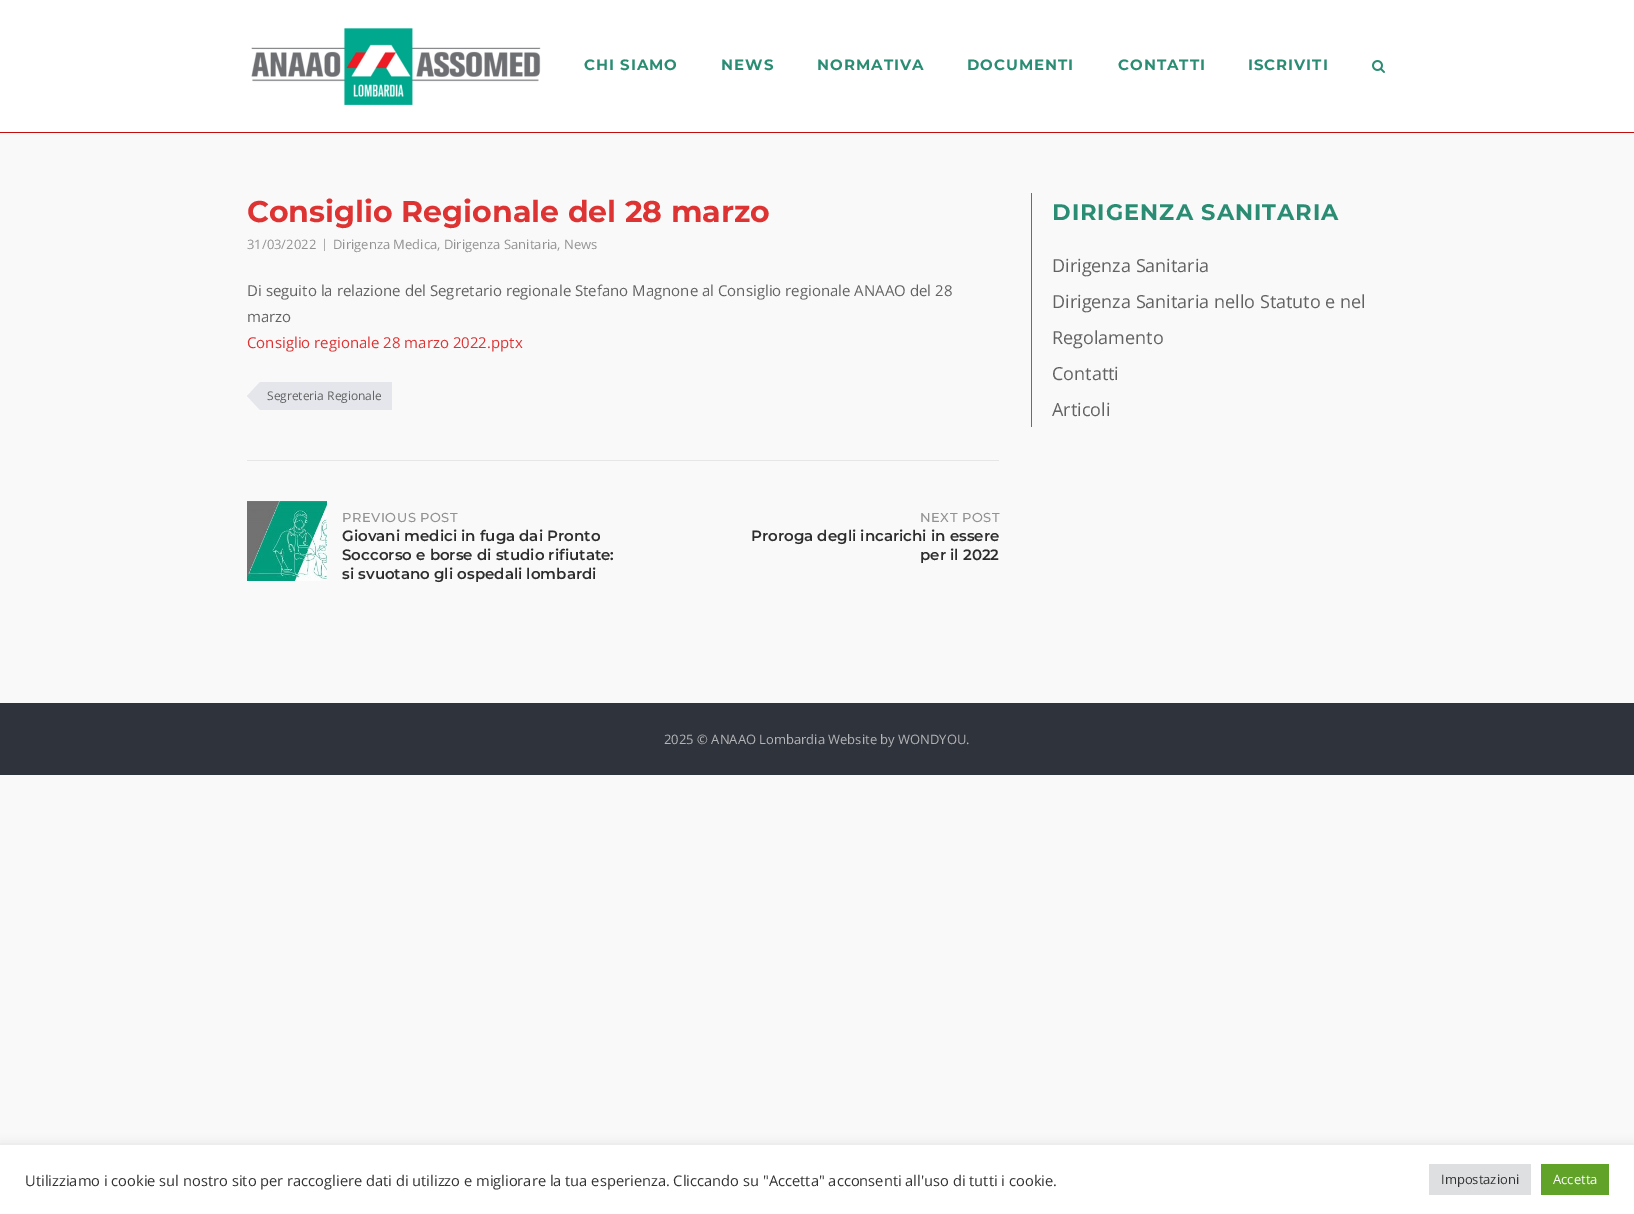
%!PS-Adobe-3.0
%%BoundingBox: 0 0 1634 1214
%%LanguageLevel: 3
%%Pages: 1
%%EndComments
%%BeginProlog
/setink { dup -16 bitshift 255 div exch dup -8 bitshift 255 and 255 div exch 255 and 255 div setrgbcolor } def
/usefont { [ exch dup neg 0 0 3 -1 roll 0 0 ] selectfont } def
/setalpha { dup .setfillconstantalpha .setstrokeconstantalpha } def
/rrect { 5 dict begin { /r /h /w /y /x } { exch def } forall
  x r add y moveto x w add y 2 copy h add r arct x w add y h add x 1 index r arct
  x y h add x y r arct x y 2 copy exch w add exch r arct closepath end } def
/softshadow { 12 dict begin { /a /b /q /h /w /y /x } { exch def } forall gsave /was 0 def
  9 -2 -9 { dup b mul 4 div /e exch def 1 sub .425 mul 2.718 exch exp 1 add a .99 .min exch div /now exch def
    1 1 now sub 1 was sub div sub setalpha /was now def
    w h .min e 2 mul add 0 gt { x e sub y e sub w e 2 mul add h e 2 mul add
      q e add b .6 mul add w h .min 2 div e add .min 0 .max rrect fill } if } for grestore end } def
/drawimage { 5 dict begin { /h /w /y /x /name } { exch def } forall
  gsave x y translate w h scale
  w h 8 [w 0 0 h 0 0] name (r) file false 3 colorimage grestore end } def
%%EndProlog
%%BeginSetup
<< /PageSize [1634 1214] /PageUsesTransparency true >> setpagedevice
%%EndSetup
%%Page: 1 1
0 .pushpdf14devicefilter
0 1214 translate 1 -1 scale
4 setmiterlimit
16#F9F9F9 setink
0 0 1634 1214 rectfill
16#FFFFFF setink
0 0 1634 132 rectfill
16#C40E0E setink
0 132 1634 1 rectfill
(img1.raw) 251 28 290 78 drawimage
/Montserrat-Bold 15 usefont
16#2A8D73 setink
584 70 moveto 1 0 (CHI SIAMO) ashow
721 70 moveto 1 0 (NEWS) ashow
817 70 moveto 1 0 (NORMATIVA) ashow
967 70 moveto 1 0 (DOCUMENTI) ashow
1118 70 moveto 1 0 (CONTATTI) ashow
1248 70 moveto 1 0 (ISCRIVITI) ashow
(img2.raw) 1372 60 13 13 drawimage
/Montserrat-Bold 30 usefont
16#DD3333 setink
247 222 moveto (Consiglio Regionale del 28 marzo) show
/OpenSans-Regular 13 usefont
16#929292 setink
247 249 moveto (31/03/2022) show
/OpenSans-Regular 12 usefont
321 248 moveto (|) show
/OpenSans-Regular 13 usefont
333 249 moveto (Dirigenza Medica, Dirigenza Sanitaria, News) show
/OpenSans-Regular 15 usefont
16#626262 setink
247 296 moveto (Di seguito la relazione del Segretario regionale Stefano Magnone al Consiglio regionale ANAAO del 28) show
247 322 moveto (marzo) show
16#DD3333 setink
247 348 moveto (Consiglio regionale 28 marzo 2022.pptx) show
16#E4E6EB setink
260 382 132 28 rectfill
260 382 moveto 260 410 lineto 247 396 lineto closepath fill
/OpenSans-Regular 12 usefont
16#626262 setink
267 400 moveto (Segreteria Regionale) show
16#E6E6E6 setink
247 460 752 1 rectfill
(img3.raw) 247 501 80 80 drawimage
/Montserrat-Medium 13 usefont
16#929292 setink
342 522 moveto 0.5 0 (PREVIOUS POST) ashow
/Montserrat-SemiBold 15 usefont
16#2D2D2D setink
[
    [(Giovani medici in fuga dai Pronto) 342 541]
    [(Soccorso e borse di studio rifiutate:) 342 560]
    [(si svuotano gli ospedali lombardi) 342 579]
] { aload pop moveto show } forall
/Montserrat-Medium 13 usefont
16#929292 setink
920 522 moveto 0.5 0 (NEXT POST) ashow
/Montserrat-SemiBold 15 usefont
16#2D2D2D setink
751 541 moveto (Proroga degli incarichi in essere) show
920 560 moveto (per il 2022) show
16#2A8D73 setink
1031 193 1 234 rectfill
/Montserrat-Bold 22.5 usefont
1052 220 moveto 1 0 (DIRIGENZA SANITARIA) ashow
/OpenSans-Regular 18 usefont
16#626262 setink
[
    [(Dirigenza Sanitaria) 1052 272]
    [(Dirigenza Sanitaria nello Statuto e nel) 1052 308]
    [(Regolamento) 1052 344]
    [(Contatti) 1052 380]
    [(Articoli) 1052 416]
] { aload pop moveto show } forall
16#2F333B setink
0 703 1634 72 rectfill
/OpenSans-Regular 13 usefont
16#B4B5B8 setink
664 744 moveto (2025 © ANAAO Lombardia Website by WONDYOU.) show
16#ACABAB setink
0 1144 1634 69 0 5 0.3 softshadow
16#FFFFFF setink
0 1145 1634 69 rectfill
/OpenSans-Regular 14.67 usefont
16#333333 setink
25 1186 moveto (Utilizziamo i cookie sul nostro sito per raccogliere dati di utilizzo e migliorare la tua esperienza. Cliccando su "Accetta" acconsenti all'uso di tutti i cookie.) show
16#DEDFE0 setink
1429 1164 102 31 rectfill
/OpenSans-Regular 13 usefont
16#333333 setink
1441 1184 moveto (Impostazioni) show
16#61A229 setink
1541 1164 68 31 rectfill
16#FFFFFF setink
1553 1184 moveto (Accetta) show
.poppdf14devicefilter showpage
%%EOF
